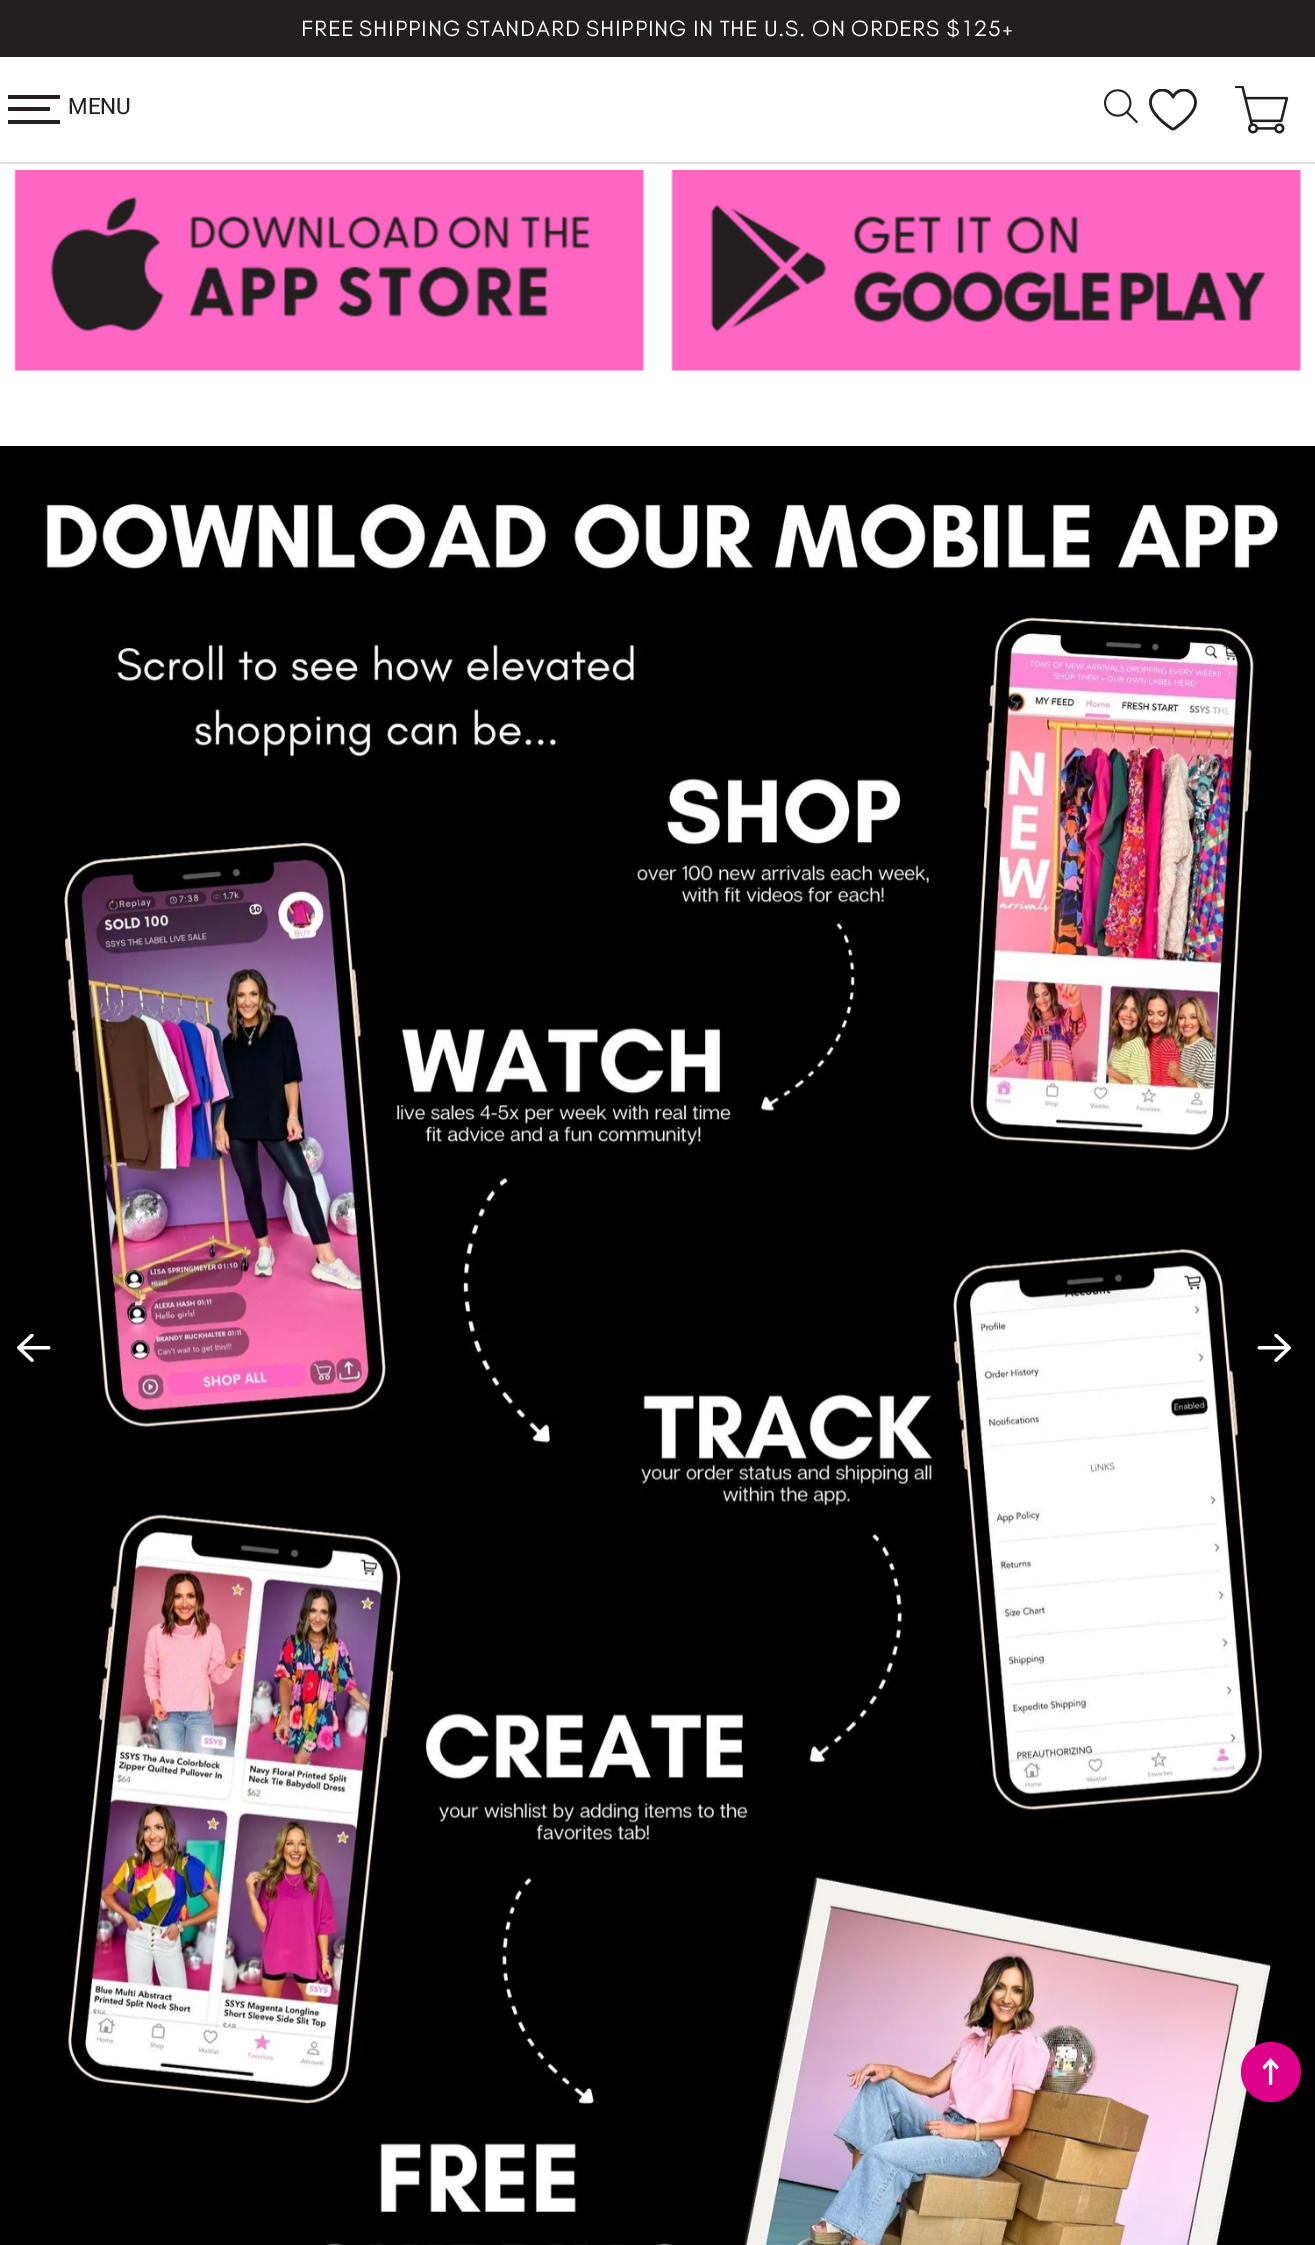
%!PS-Adobe-3.0
%%BoundingBox: 0 0 1315 2245
%%LanguageLevel: 3
%%Pages: 1
%%EndComments
%%BeginProlog
/setink { dup -16 bitshift 255 div exch dup -8 bitshift 255 and 255 div exch 255 and 255 div setrgbcolor } def
/usefont { [ exch dup neg 0 0 3 -1 roll 0 0 ] selectfont } def
/disc { newpath 0 360 arc closepath } def
/drawimage { 5 dict begin { /h /w /y /x /name } { exch def } forall
  gsave x y translate w h scale
  w h 8 [w 0 0 h 0 0] name (r) file false 3 colorimage grestore end } def
%%EndProlog
%%BeginSetup
<< /PageSize [1315 2245] >> setpagedevice
%%EndSetup
%%Page: 1 1
0 2245 translate 1 -1 scale
4 setmiterlimit
16#FFFFFF setink
0 0 1315 2245 rectfill
16#231F20 setink
0 0 1315 57 rectfill
/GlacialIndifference-Regular 21 usefont
16#FFFFFF setink
301 36 moveto 0.75 0 (FREE SHIPPING STANDARD SHIPPING IN THE U.S. ON ORDERS $125+) ashow
16#231F20 setink
8 95 moveto 8 99 lineto 60 99 lineto 60 95 lineto closepath 8 107 moveto 8 111 lineto 50 111 lineto 50 107 lineto closepath 8 120 moveto 8 124 lineto 60 124 lineto 60 120 lineto closepath eofill
/Roboto-Regular 22.5 usefont
68 114 moveto (MENU) show
(img1.raw) 1104 89 34 34 drawimage
(img2.raw) 1149 89 48 42 drawimage
(img3.raw) 1235 86 54 48 drawimage
16#DDDDDD setink
0 162 1315 2 rectfill
(img4.raw) 14 170 630 201 drawimage
(img5.raw) 671 170 630 201 drawimage
(img6.raw) 0 446 1315 1799 drawimage
(img7.raw) 17 1334 34 28 drawimage
(img8.raw) 1257 1334 34 28 drawimage
16#DD0088 setink
1271 2072 30 disc fill
(img9.raw) 1262 2058 17 27 drawimage
showpage
%%EOF
